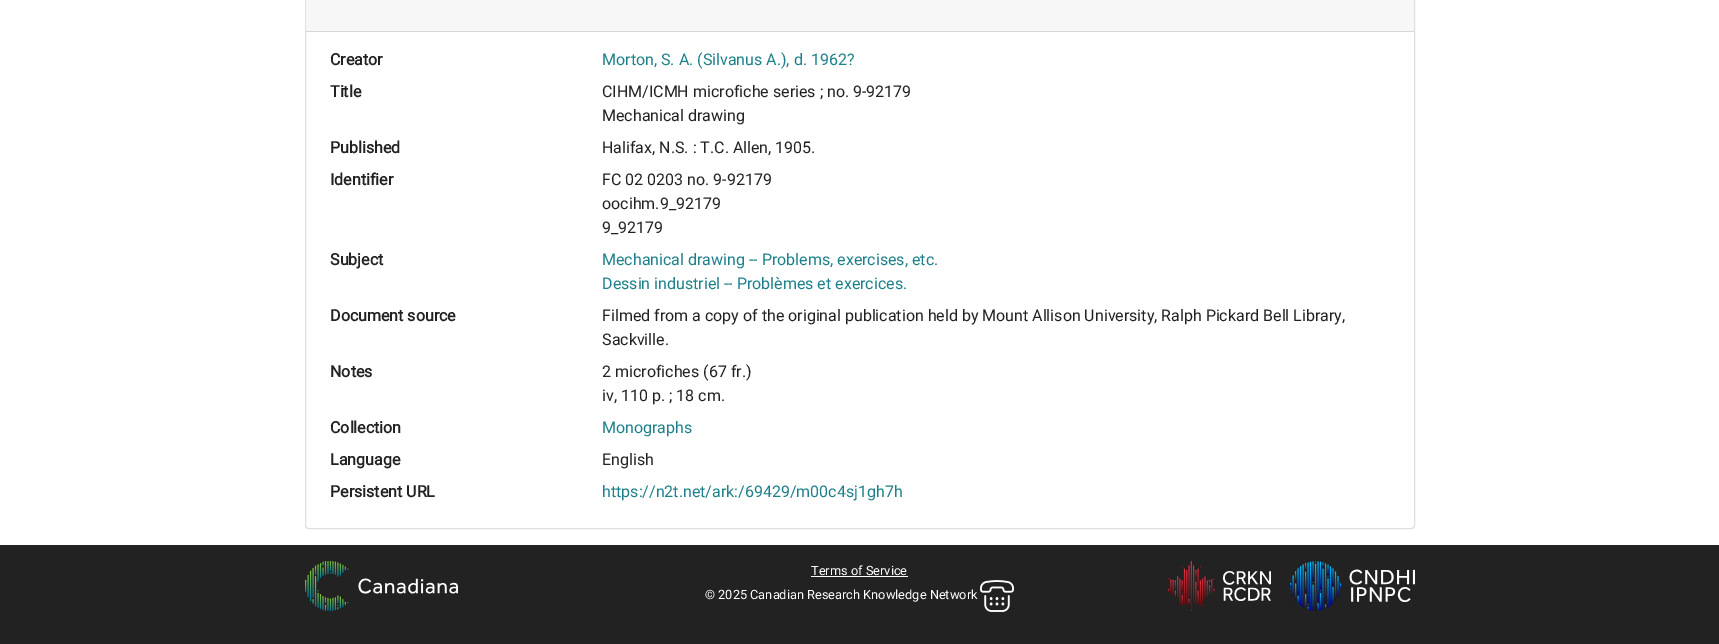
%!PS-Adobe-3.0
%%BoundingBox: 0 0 1719 644
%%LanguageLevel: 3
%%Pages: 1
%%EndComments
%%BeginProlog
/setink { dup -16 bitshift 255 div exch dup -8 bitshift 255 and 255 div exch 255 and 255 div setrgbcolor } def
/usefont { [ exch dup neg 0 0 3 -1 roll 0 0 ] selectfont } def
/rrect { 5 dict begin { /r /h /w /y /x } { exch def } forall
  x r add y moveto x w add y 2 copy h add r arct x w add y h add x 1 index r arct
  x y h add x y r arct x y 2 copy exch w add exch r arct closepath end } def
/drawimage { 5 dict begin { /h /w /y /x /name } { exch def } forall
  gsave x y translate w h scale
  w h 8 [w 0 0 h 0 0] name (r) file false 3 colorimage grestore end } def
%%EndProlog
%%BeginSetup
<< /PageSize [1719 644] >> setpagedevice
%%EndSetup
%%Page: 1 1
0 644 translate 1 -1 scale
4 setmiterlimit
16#FFFFFF setink
0 0 1719 644 rectfill
16#DFDFDF setink
305.5 -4.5 1109 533 3.5 rrect stroke
16#F7F7F7 setink
306 0 1108 31 rectfill
16#D8D8D8 setink
306 31 1108 1 rectfill
/Roboto-Bold 16 usefont
16#222222 setink
330 65 moveto (Creator) show
/Roboto-Regular 16 usefont
16#1D808B setink
602 65 moveto (Morton, S. A. \(Silvanus A.\), d. 1962?) show
/Roboto-Bold 16 usefont
16#222222 setink
330 97 moveto (Title) show
/Roboto-Regular 16 usefont
602 97 moveto (CIHM/ICMH microfiche series ; no. 9-92179) show
602 121 moveto (Mechanical drawing) show
/Roboto-Bold 16 usefont
330 153 moveto (Published) show
/Roboto-Regular 16 usefont
602 153 moveto (Halifax, N.S. : T.C. Allen, 1905.) show
/Roboto-Bold 16 usefont
330 185 moveto (Identifier) show
/Roboto-Regular 16 usefont
[
    [(FC 02 0203 no. 9-92179) 602 185]
    [(oocihm.9_92179) 602 209]
    [(9_92179) 602 233]
] { aload pop moveto show } forall
/Roboto-Bold 16 usefont
330 265 moveto (Subject) show
/Roboto-Regular 16 usefont
16#1D808B setink
602 265 moveto (Mechanical drawing -- Problems, exercises, etc.) show
602 289 moveto (Dessin industriel -- Problèmes et exercices.) show
/Roboto-Bold 16 usefont
16#222222 setink
330 321 moveto (Document source) show
/Roboto-Regular 16 usefont
602 321 moveto (Filmed from a copy of the original publication held by Mount Allison University, Ralph Pickard Bell Library,) show
602 345 moveto (Sackville.) show
/Roboto-Bold 16 usefont
330 377 moveto (Notes) show
/Roboto-Regular 16 usefont
602 377 moveto (2 microfiches \(67 fr.\)) show
602 401 moveto (iv, 110 p. ; 18 cm.) show
/Roboto-Bold 16 usefont
330 433 moveto (Collection) show
/Roboto-Regular 16 usefont
16#1D808B setink
602 433 moveto (Monographs) show
/Roboto-Bold 16 usefont
16#222222 setink
330 465 moveto (Language) show
/Roboto-Regular 16 usefont
602 465 moveto (English) show
/Roboto-Bold 16 usefont
330 497 moveto (Persistent URL) show
/Roboto-Regular 16 usefont
16#1D808B setink
602 497 moveto (https://n2t.net/ark:/69429/m00c4sj1gh7h) show
16#222222 setink
0 545 1719 99 rectfill
(img1.raw) 305 561 153 50 drawimage
/Roboto-Regular 12.8 usefont
16#FFFFFF setink
811 575 moveto (Terms of Service) show
811 576 97 1 rectfill
705 599 moveto (© 2025 Canadian Research Knowledge Network) show
(img2.raw) 980 580 34 32 drawimage
(img3.raw) 1168 561 103 50 drawimage
(img4.raw) 1290 561 125 50 drawimage
showpage
%%EOF
